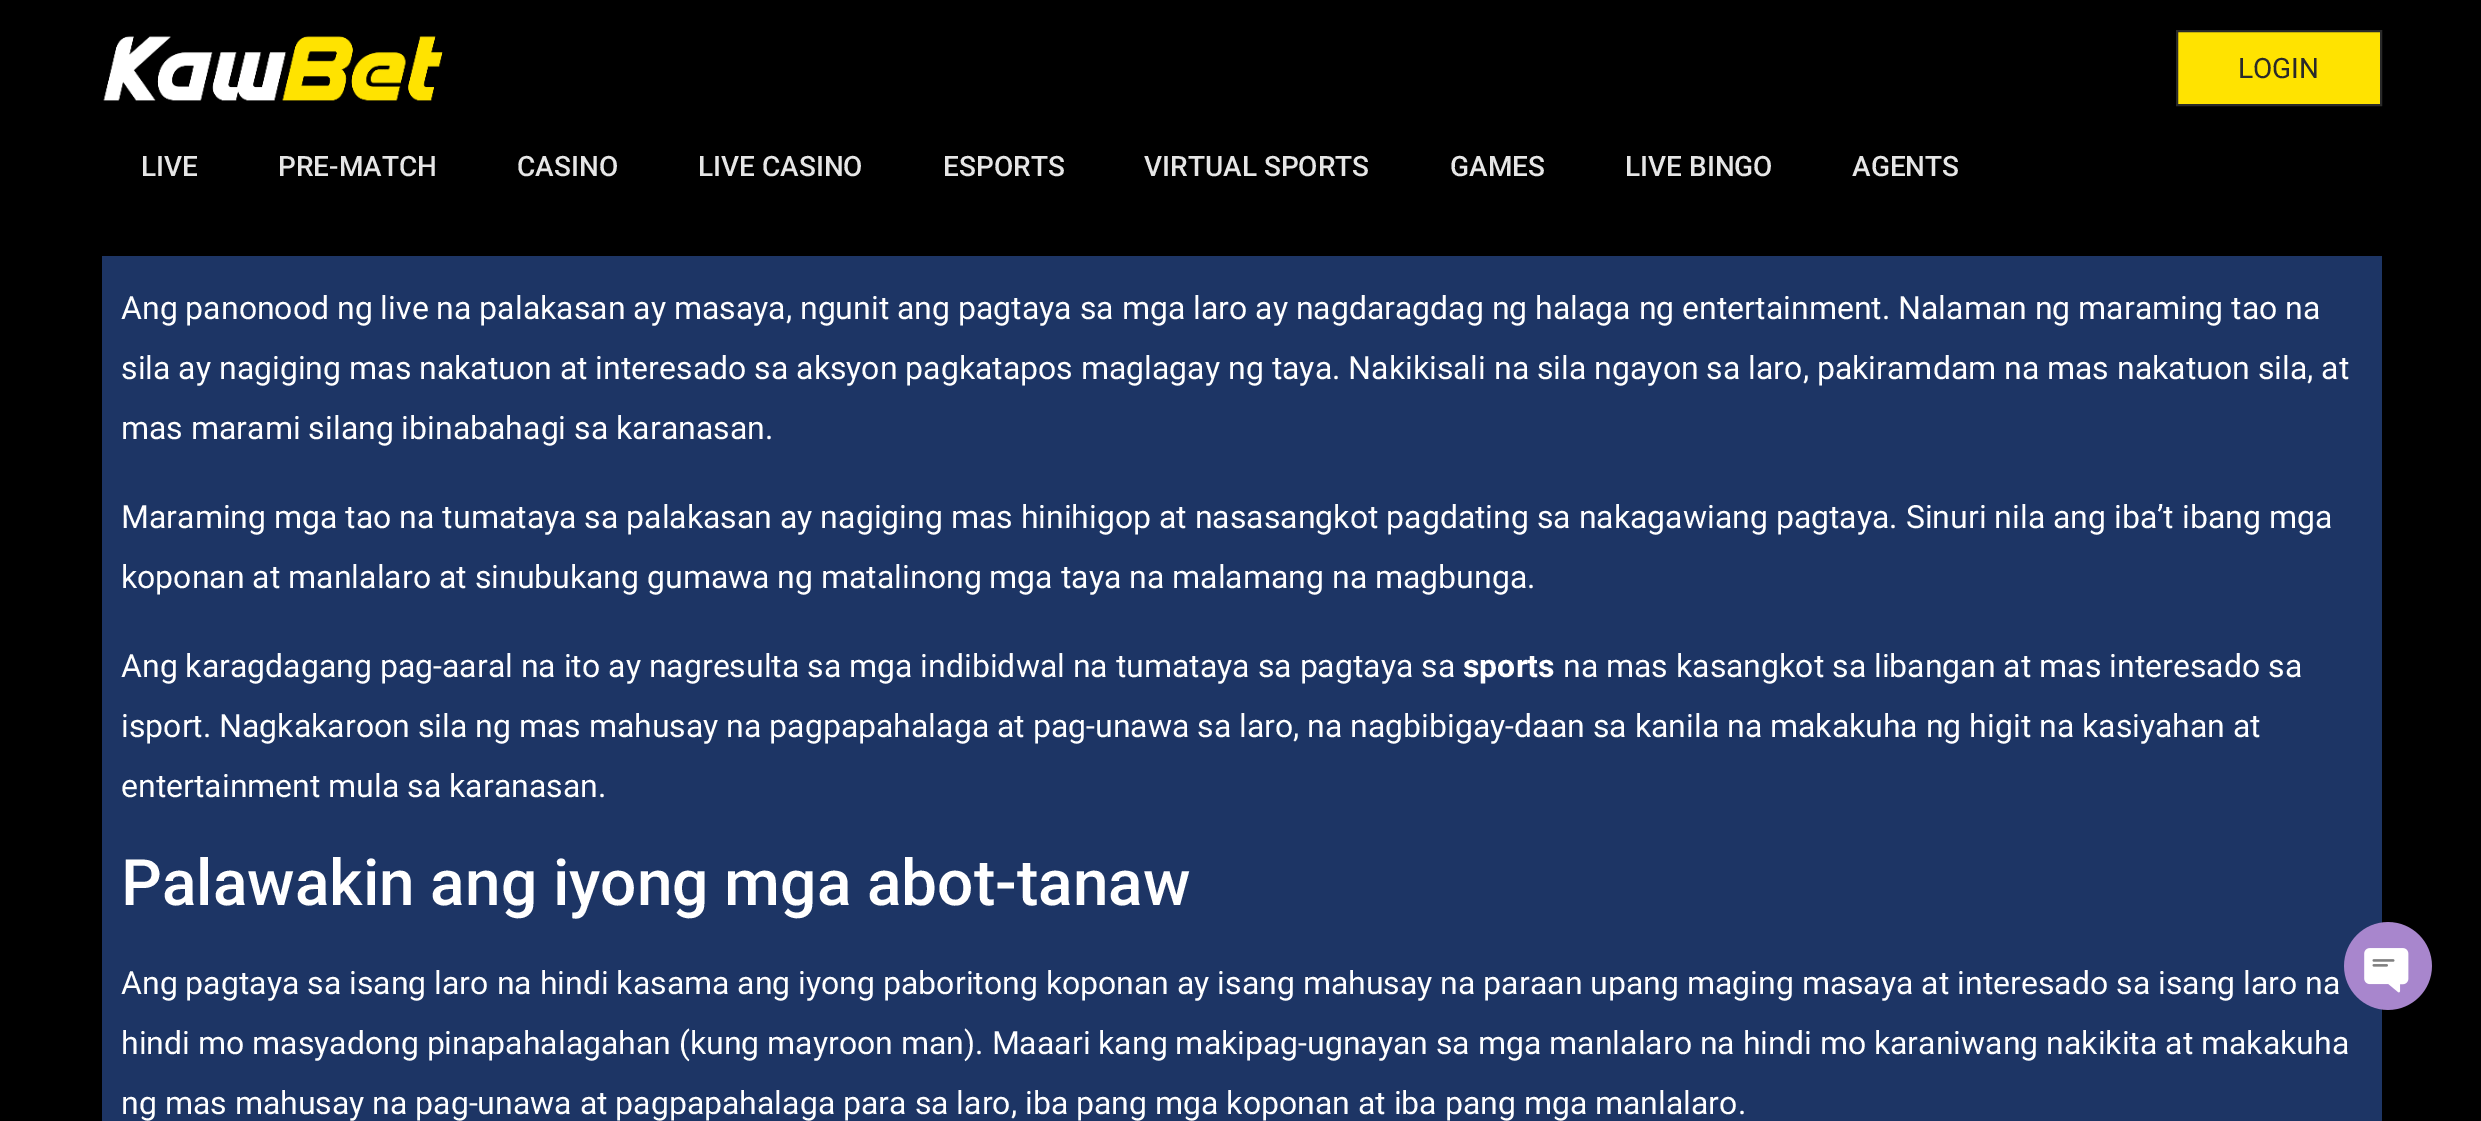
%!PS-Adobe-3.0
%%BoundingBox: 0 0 2481 1121
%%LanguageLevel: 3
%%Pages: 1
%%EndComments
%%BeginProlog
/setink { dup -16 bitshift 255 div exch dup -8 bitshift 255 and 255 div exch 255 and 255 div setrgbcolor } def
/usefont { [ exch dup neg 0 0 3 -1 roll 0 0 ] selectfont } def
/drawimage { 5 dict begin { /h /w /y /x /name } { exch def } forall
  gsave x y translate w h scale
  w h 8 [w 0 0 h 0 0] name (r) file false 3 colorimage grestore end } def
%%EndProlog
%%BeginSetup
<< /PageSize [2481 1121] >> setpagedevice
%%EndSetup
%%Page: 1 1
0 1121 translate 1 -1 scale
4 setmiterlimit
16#000000 setink
0 0 2481 1121 rectfill
(img1.raw) 103 36 340 65 drawimage
16#FFE300 setink
2177 31 moveto 2381 31 lineto 2381 105 lineto 2177 105 lineto closepath gsave fill grestore
16#2A2A2A setink
2 setlinewidth
stroke
/Roboto-Regular 28 usefont
2238 78 moveto (LOGIN) show
/Roboto-Medium 28 usefont
16#E6E6E6 setink
[
    [(LIVE) 141 176]
    [(PRE-MATCH) 278 176]
    [(CASINO) 517 176]
    [(LIVE CASINO) 698 176]
    [(ESPORTS) 943 176]
    [(VIRTUAL SPORTS) 1144 176]
    [(GAMES) 1450 176]
    [(LIVE BINGO) 1625 176]
    [(AGENTS) 1852 176]
] { aload pop moveto show } forall
16#1D3565 setink
102 256 2280 865 rectfill
/Roboto-Regular 32 usefont
16#FFFFFF setink
[
    [(Ang panonood ng live na palakasan ay masaya, ngunit ang pagtaya sa mga laro ay nagdaragdag ng halaga ng entertainment. Nalaman ng maraming tao na) 121 319]
    [(sila ay nagiging mas nakatuon at interesado sa aksyon pagkatapos maglagay ng taya. Nakikisali na sila ngayon sa laro, pakiramdam na mas nakatuon sila, at) 121 379]
    [(mas marami silang ibinabahagi sa karanasan.) 121 439]
    [(Maraming mga tao na tumataya sa palakasan ay nagiging mas hinihigop at nasasangkot pagdating sa nakagawiang pagtaya. Sinuri nila ang iba’t ibang mga) 121 528]
    [(koponan at manlalaro at sinubukang gumawa ng matalinong mga taya na malamang na magbunga.) 121 588]
    [(Ang karagdagang pag-aaral na ito ay nagresulta sa mga indibidwal na tumataya sa pagtaya sa) 121 677]
] { aload pop moveto show } forall
/Roboto-Bold 32 usefont
1463 677 moveto (sports) show
/Roboto-Regular 32 usefont
[
    [(na mas kasangkot sa libangan at mas interesado sa) 1563 677]
    [(isport. Nagkakaroon sila ng mas mahusay na pagpapahalaga at pag-unawa sa laro, na nagbibigay-daan sa kanila na makakuha ng higit na kasiyahan at) 121 737]
    [(entertainment mula sa karanasan.) 121 797]
] { aload pop moveto show } forall
/Roboto-Medium 64 usefont
121 905 moveto (Palawakin ang iyong mga abot-tanaw) show
/Roboto-Regular 32 usefont
[
    [(Ang pagtaya sa isang laro na hindi kasama ang iyong paboritong koponan ay isang mahusay na paraan upang maging masaya at interesado sa isang laro na) 121 994]
    [(hindi mo masyadong pinapahalagahan \(kung mayroon man\). Maaari kang makipag-ugnayan sa mga manlalaro na hindi mo karaniwang nakikita at makakuha) 121 1054]
    [(ng mas mahusay na pag-unawa at pagpapahalaga para sa laro, iba pang mga koponan at iba pang mga manlalaro.) 121 1114]
] { aload pop moveto show } forall
(img2.raw) 2344 922 88 88 drawimage
showpage
%%EOF
